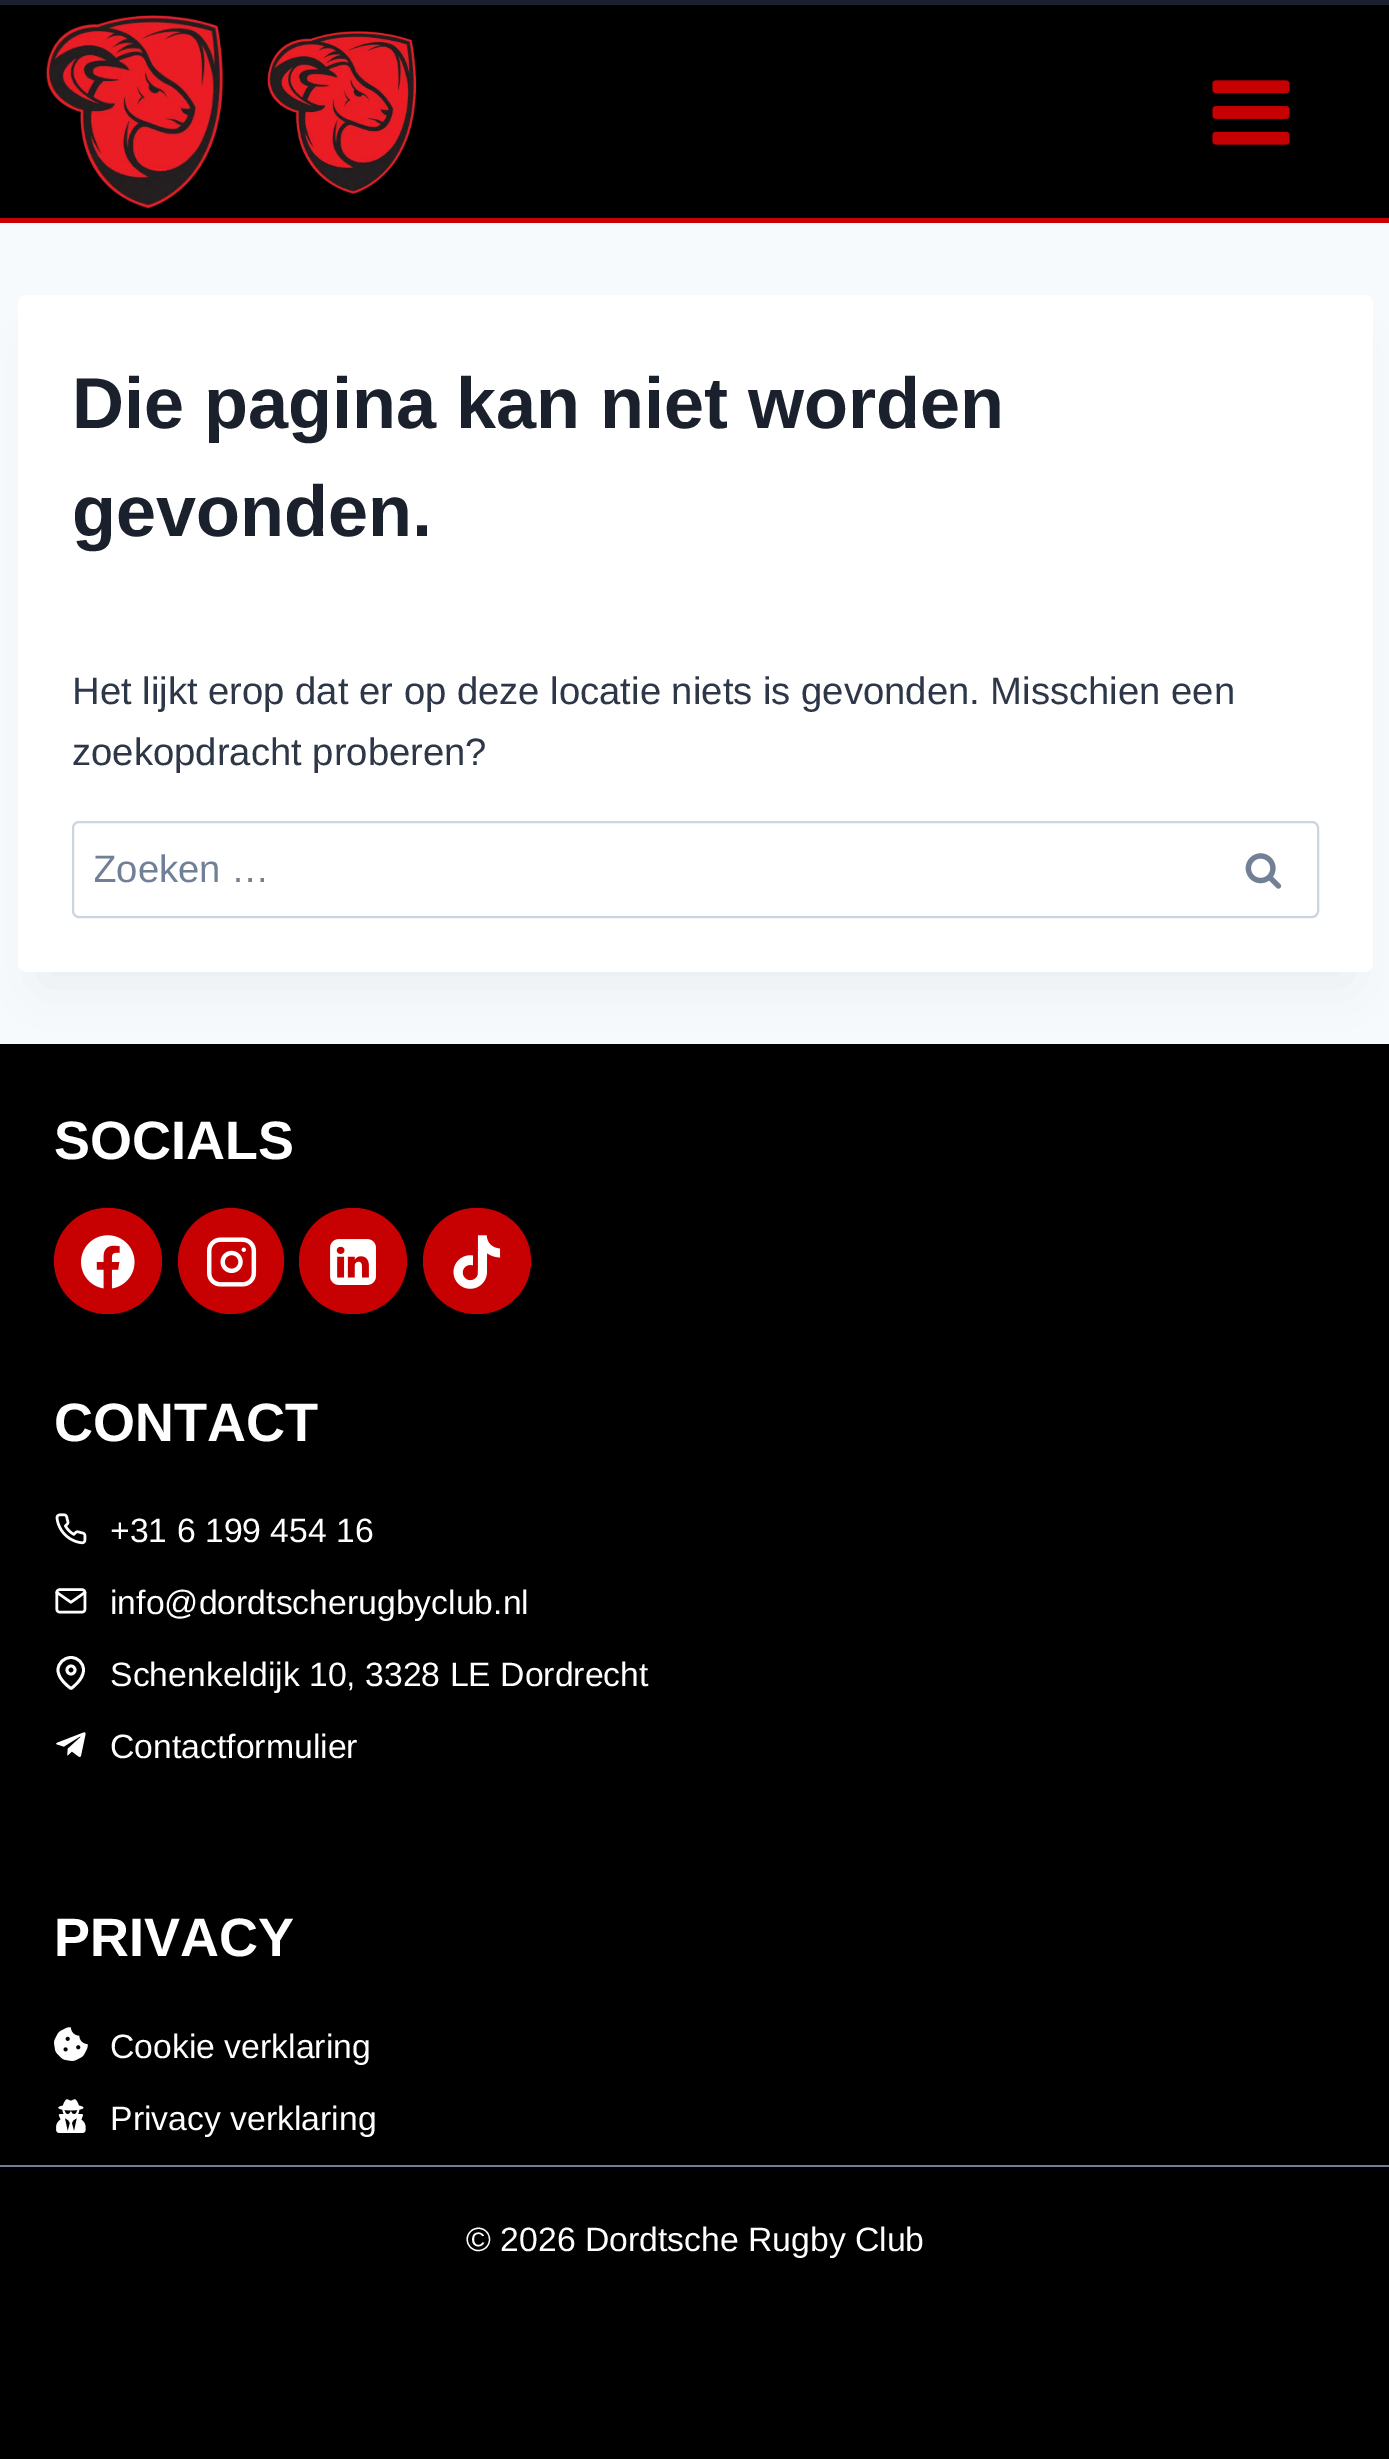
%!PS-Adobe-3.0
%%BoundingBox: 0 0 1389 2459
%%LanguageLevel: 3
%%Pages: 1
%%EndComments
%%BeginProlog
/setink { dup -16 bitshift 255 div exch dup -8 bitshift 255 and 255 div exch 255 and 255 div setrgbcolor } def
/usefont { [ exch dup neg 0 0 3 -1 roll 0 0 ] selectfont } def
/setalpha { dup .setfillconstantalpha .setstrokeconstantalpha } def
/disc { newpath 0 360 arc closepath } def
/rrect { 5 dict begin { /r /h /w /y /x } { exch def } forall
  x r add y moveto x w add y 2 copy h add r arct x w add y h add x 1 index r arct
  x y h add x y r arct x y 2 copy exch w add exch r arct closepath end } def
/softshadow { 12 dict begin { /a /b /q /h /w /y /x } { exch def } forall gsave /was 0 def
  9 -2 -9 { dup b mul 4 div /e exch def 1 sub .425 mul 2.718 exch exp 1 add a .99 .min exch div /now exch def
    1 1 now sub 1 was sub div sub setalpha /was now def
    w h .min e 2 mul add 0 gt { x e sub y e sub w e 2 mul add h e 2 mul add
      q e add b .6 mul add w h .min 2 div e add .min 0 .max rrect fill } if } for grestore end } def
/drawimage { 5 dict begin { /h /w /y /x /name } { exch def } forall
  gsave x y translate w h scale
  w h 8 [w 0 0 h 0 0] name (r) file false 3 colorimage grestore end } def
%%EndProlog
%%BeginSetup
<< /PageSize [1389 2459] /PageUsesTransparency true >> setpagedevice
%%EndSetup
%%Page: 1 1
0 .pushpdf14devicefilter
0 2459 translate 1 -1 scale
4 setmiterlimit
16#F7FAFC setink
0 0 1389 2459 rectfill
[
    [0 5 1389 213 16#000000]
    [0 0 1389 5 16#1A202C]
    [0 218 1389 5 16#C70101]
] { aload pop setink rectfill } forall
(img1.raw) 46 15 178 194 drawimage
(img2.raw) 267 31 150 163 drawimage
(img3.raw) 1212 80 78 65 drawimage
16#000000 setink
0 1044 1389 1415 rectfill
41 351 1309 632 0 28 0.05 softshadow
16#FFFFFF setink
18 295 1355 677 9 rrect fill
/LiberationSans-Bold 72 usefont
16#1A202C setink
72 428 moveto (Die pagina kan niet worden) show
72 536 moveto (gevonden.) show
/LiberationSans-Regular 38.25 usefont
16#2D3748 setink
72 704 moveto (Het lijkt erop dat er op deze locatie niets is gevonden. Misschien een) show
72 765 moveto (zoekopdracht proberen?) show
16#CBD5E0 setink
2 setlinewidth
73 822 1245 95 6 rrect stroke
gsave
95 848 1050 45 rectclip
16#718096 setink
93 882 moveto (Zoeken …) show
grestore
(img4.raw) 1245 853 37 36 drawimage
/LiberationSans-Bold 54 usefont
16#FFFFFF setink
54 1159 moveto (SOCIALS) show
16#C70101 setink
54 1208 108 106 53 rrect fill
(img5.raw) 81 1235 54 54 drawimage
231 1261 53 disc fill
(img6.raw) 207 1237 50 50 drawimage
299 1208 108 106 53 rrect fill
(img7.raw) 330 1239 46 46 drawimage
423 1208 108 106 53 rrect fill
(img8.raw) 453 1235 48 54 drawimage
16#FFFFFF setink
54 1441 moveto (CONTACT) show
(img9.raw) 55 1513 32 32 drawimage
/LiberationSans-Regular 33.75 usefont
110 1542 moveto (+31 6 199 454 16) show
(img10.raw) 55 1588 32 26 drawimage
110 1614 moveto (info@dordtscherugbyclub.nl) show
2.8 setlinewidth
1 setlinecap
1 setlinejoin
83.5 1670 moveto 83.5 1680 71 1688.5 71 1688.5 curveto 71 1688.5 58 1680 58 1670 curveto 58 1663 64 1657.5 71 1657.5 curveto 78 1657.5 83.5 1663 83.5 1670 curveto closepath stroke
0 setlinecap
0 setlinejoin
71 1670 4 disc stroke
110 1686 moveto (Schenkeldijk 10, 3328 LE Dordrecht) show
(img11.raw) 56 1732 30 25 drawimage
110 1758 moveto (Contactformulier) show
/LiberationSans-Bold 54 usefont
54 1956 moveto (PRIVACY) show
(img12.raw) 54 2027 34 34 drawimage
/LiberationSans-Regular 33.75 usefont
110 2058 moveto (Cookie verklaring) show
(img13.raw) 56 2099 30 34 drawimage
110 2130 moveto (Privacy verklaring) show
16#718096 setink
0 2165 1389 2 rectfill
16#FFFFFF setink
466 2251 moveto (© 2026 Dordtsche Rugby Club) show
.poppdf14devicefilter showpage
%%EOF
